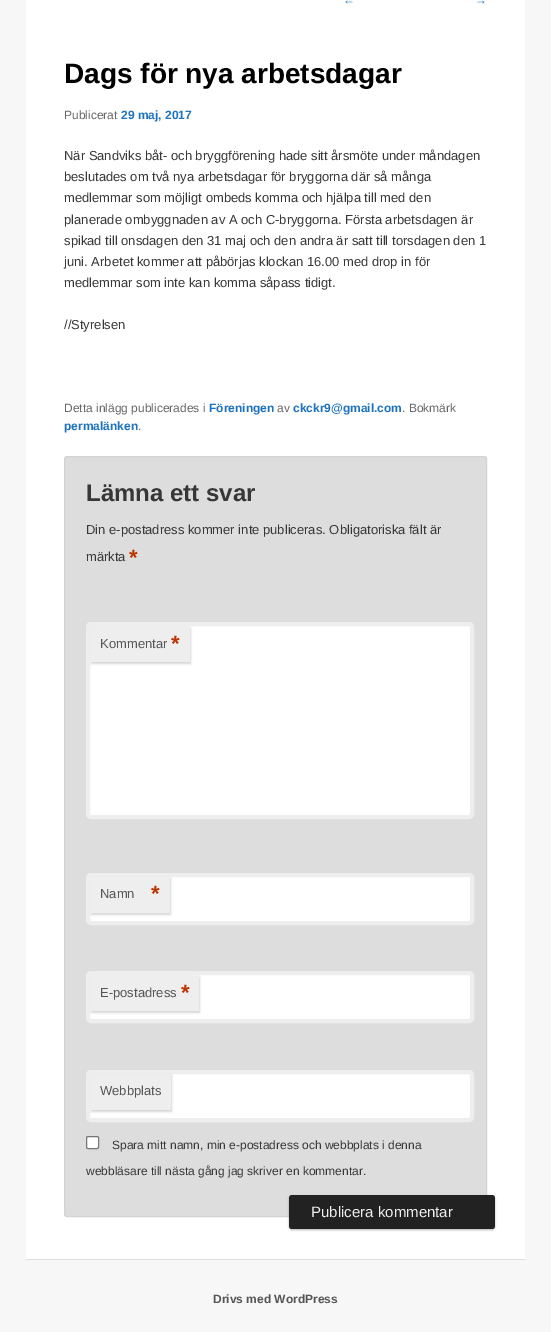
%!PS-Adobe-3.0
%%BoundingBox: 0 0 551 1332
%%LanguageLevel: 3
%%Pages: 1
%%EndComments
%%BeginProlog
/setink { dup -16 bitshift 255 div exch dup -8 bitshift 255 and 255 div exch 255 and 255 div setrgbcolor } def
/usefont { [ exch dup neg 0 0 3 -1 roll 0 0 ] selectfont } def
/setalpha { dup .setfillconstantalpha .setstrokeconstantalpha } def
/rrect { 5 dict begin { /r /h /w /y /x } { exch def } forall
  x r add y moveto x w add y 2 copy h add r arct x w add y h add x 1 index r arct
  x y h add x y r arct x y 2 copy exch w add exch r arct closepath end } def
/softshadow { 12 dict begin { /a /b /q /h /w /y /x } { exch def } forall gsave /was 0 def
  9 -2 -9 { dup b mul 4 div /e exch def 1 sub .425 mul 2.718 exch exp 1 add a .99 .min exch div /now exch def
    1 1 now sub 1 was sub div sub setalpha /was now def
    w h .min e 2 mul add 0 gt { x e sub y e sub w e 2 mul add h e 2 mul add
      q e add b .6 mul add w h .min 2 div e add .min 0 .max rrect fill } if } for grestore end } def
%%EndProlog
%%BeginSetup
<< /PageSize [551 1332] /PageUsesTransparency true >> setpagedevice
%%EndSetup
%%Page: 1 1
0 .pushpdf14devicefilter
0 1332 translate 1 -1 scale
4 setmiterlimit
16#F7F7F7 setink
0 0 551 1332 rectfill
16#FFFFFF setink
26 0 499 1259 rectfill
/LiberationSans-Regular 12 usefont
16#1E73BE setink
343 4 moveto (←) show
475 4 moveto (→) show
/LiberationSans-Bold 28 usefont
16#000000 setink
64 83 moveto (Dags för nya arbetsdagar) show
/LiberationSans-Regular 12 usefont
16#666666 setink
64 119 moveto (Publicerat) show
/LiberationSans-Bold 12 usefont
16#1E73BE setink
121 119 moveto (29 maj, 2017) show
/LiberationSans-Regular 13 usefont
16#373737 setink
[
    [(När Sandviks båt- och bryggförening hade sitt årsmöte under måndagen) 64 160]
    [(beslutades om två nya arbetsdagar för bryggorna där så många) 64 181]
    [(medlemmar som möjligt ombeds komma och hjälpa till med den) 64 202]
    [(planerade ombyggnaden av A och C-bryggorna. Första arbetsdagen är) 64 224]
    [(spikad till onsdagen den 31 maj och den andra är satt till torsdagen den 1) 64 245]
    [(juni. Arbetet kommer att påbörjas klockan 16.00 med drop in för) 64 266]
    [(medlemmar som inte kan komma såpass tidigt.) 64 287]
    [(//Styrelsen) 64 329]
] { aload pop moveto show } forall
/LiberationSans-Regular 12 usefont
16#666666 setink
64 412 moveto (Detta inlägg publicerades i) show
/LiberationSans-Bold 12 usefont
16#1E73BE setink
209 412 moveto (Föreningen) show
/LiberationSans-Regular 12 usefont
16#666666 setink
277 412 moveto (av) show
/LiberationSans-Bold 12 usefont
16#1E73BE setink
293 412 moveto (ckckr9@gmail.com) show
/LiberationSans-Regular 12 usefont
16#666666 setink
402 412 moveto (. Bokmärk) show
/LiberationSans-Bold 12 usefont
16#1E73BE setink
64 430 moveto (permalänken) show
/LiberationSans-Regular 12 usefont
16#666666 setink
138 430 moveto (.) show
16#DDDDDD setink
64.5 456.5 422 760 2.5 rrect gsave fill grestore
16#D3D3D3 setink
stroke
/LiberationSans-Bold 24 usefont
16#373737 setink
86 501 moveto (Lämna ett svar) show
/LiberationSans-Regular 13 usefont
86 534 moveto (Din e-postadress kommer inte publiceras. Obligatoriska fält är) show
86 561 moveto (märkta) show
/LiberationSans-Bold 22 usefont
16#BD3500 setink
129 565 moveto (*) show
16#FFFFFF setink
88 624 384 193 3 rrect gsave fill grestore
16#EEEEEE setink
4 setlinewidth
stroke
16#CCCCCC setink
91 628 100 36 0 1 0.8 softshadow
16#EEEEEE setink
90 626 100 36 rectfill
/LiberationSans-Regular 13 usefont
16#555555 setink
100 648 moveto (Kommentar) show
/LiberationSans-Bold 22 usefont
16#BD3500 setink
171 651 moveto (*) show
16#FFFFFF setink
88 875 384 48 3 rrect gsave fill grestore
16#EEEEEE setink
stroke
16#CCCCCC setink
91 878 80 37 0 1 0.8 softshadow
16#EEEEEE setink
90 877 80 36 rectfill
/LiberationSans-Regular 13 usefont
16#555555 setink
100 898 moveto (Namn) show
/LiberationSans-Bold 22 usefont
16#BD3500 setink
151 901 moveto (*) show
16#FFFFFF setink
88 973 384 48 3 rrect gsave fill grestore
16#EEEEEE setink
stroke
16#CCCCCC setink
91 977 109 36 0 1 0.8 softshadow
16#EEEEEE setink
90 975 109 36 rectfill
/LiberationSans-Regular 13 usefont
16#555555 setink
100 997 moveto (E-postadress) show
/LiberationSans-Bold 22 usefont
16#BD3500 setink
181 1000 moveto (*) show
16#FFFFFF setink
88 1072 384 48 3 rrect gsave fill grestore
16#EEEEEE setink
stroke
16#CCCCCC setink
91 1075 81 37 0 1 0.8 softshadow
16#EEEEEE setink
90 1074 81 36 rectfill
/LiberationSans-Regular 13 usefont
16#555555 setink
100 1095 moveto (Webbplats) show
16#FFFFFF setink
86.5 1136.5 12 12 1.5 rrect gsave fill grestore
16#767676 setink
1 setlinewidth
stroke
/LiberationSans-Regular 12 usefont
16#373737 setink
112 1149 moveto (Spara mitt namn, min e-postadress och webbplats i denna) show
86 1175 moveto (webbläsare till nästa gång jag skriver en kommentar.) show
16#000000 setink
289 1196 206 34 3 1 0.3 softshadow
16#222222 setink
289 1195 206 34 3 rrect fill
/LiberationSans-Regular 15 usefont
16#EEEEEE setink
311 1217 moveto (Publicera kommentar) show
16#DDDDDD setink
26 1259 499 1 rectfill
/LiberationSans-Bold 12 usefont
16#555555 setink
213 1303 moveto (Drivs med WordPress) show
.poppdf14devicefilter showpage
%%EOF
